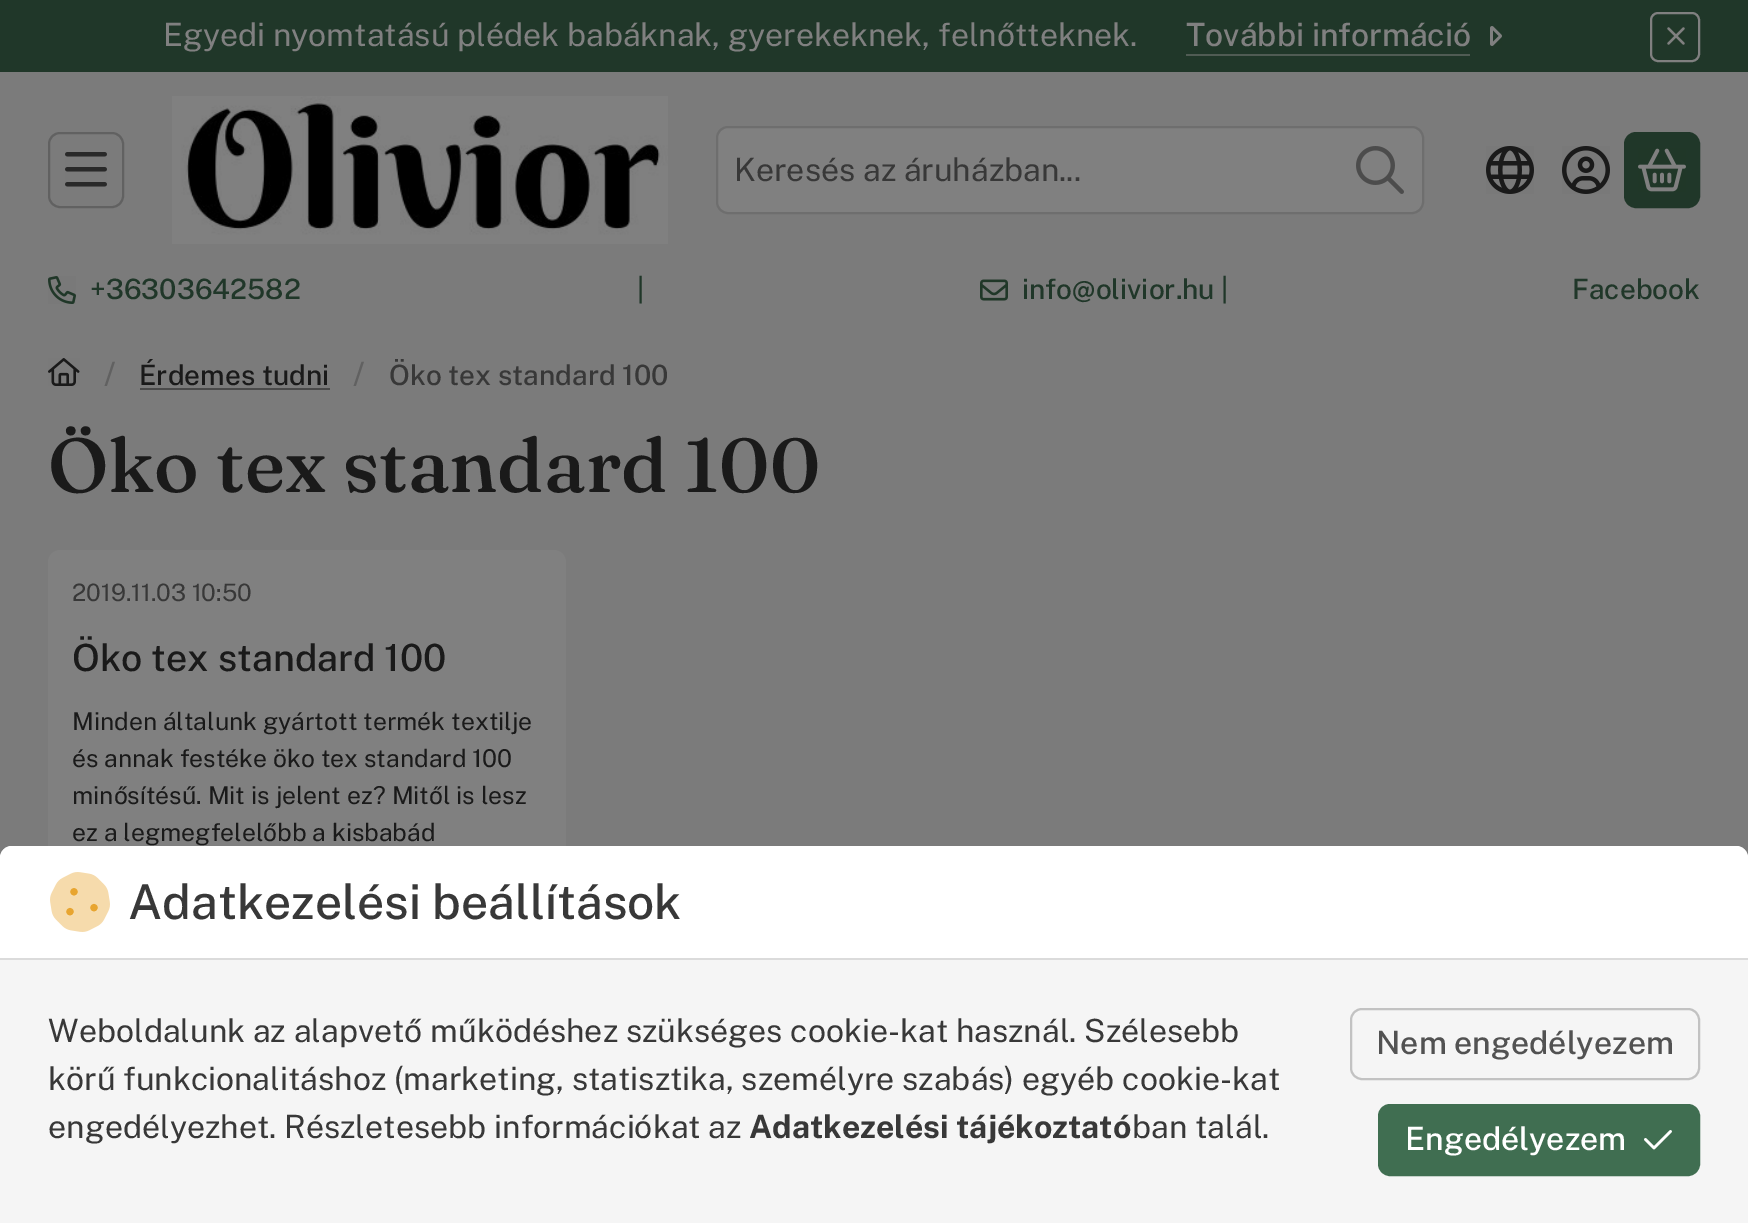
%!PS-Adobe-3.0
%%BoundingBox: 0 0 1748 1223
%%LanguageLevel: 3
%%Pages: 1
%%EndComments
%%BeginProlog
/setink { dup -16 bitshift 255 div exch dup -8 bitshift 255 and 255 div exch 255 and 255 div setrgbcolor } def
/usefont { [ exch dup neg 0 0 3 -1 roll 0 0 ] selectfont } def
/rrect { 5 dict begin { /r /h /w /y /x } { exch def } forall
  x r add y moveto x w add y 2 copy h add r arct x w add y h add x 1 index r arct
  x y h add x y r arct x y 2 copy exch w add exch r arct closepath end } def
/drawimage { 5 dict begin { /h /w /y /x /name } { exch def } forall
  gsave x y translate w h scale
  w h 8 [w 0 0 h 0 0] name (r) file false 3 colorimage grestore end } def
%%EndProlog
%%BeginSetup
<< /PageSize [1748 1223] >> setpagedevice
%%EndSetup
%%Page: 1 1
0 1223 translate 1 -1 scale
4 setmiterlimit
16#7B7B7B setink
0 0 1748 1223 rectfill
16#203729 setink
0 0 1748 72 rectfill
/PublicSans-Regular 32 usefont
16#808080 setink
163 46 moveto (Egyedi nyomtatású plédek babáknak, gyerekeknek, felnőtteknek.) show
/PublicSans-Medium 32 usefont
1186 46 moveto (További információ) show
16#505C54 setink
1186 54 284 2 rectfill
(img1.raw) 1490 26 12 20 drawimage
16#808080 setink
2 setlinewidth
1651 13 48 48 7 rrect stroke
(img2.raw) 1667 27 18 18 drawimage
16#616161 setink
49 133 74 74 11 rrect stroke
(img3.raw) 65 152 42 35 drawimage
(img4.raw) 172 96 496 148 drawimage
16#808080 setink
717 127 706 86 11 rrect gsave fill grestore
16#6E6E6E setink
stroke
/PublicSans-Regular 32 usefont
16#383838 setink
734 181 moveto (Keresés az áruházban...) show
(img5.raw) 1356 146 48 48 drawimage
(img6.raw) 1486 146 48 48 drawimage
(img7.raw) 1562 146 48 48 drawimage
16#203729 setink
1625 133 74 74 11 rrect gsave fill grestore
stroke
(img8.raw) 1638 148 48 44 drawimage
(img9.raw) 48 276 28 28 drawimage
/PublicSans-Medium 28 usefont
90 299 moveto (+36303642582) show
637 299 moveto (|) show
(img10.raw) 980 279 28 22 drawimage
1022 299 moveto (info@olivior.hu |) show
1572 299 moveto (Facebook) show
(img11.raw) 48 358 32 28 drawimage
/PublicSans-Medium 32 usefont
16#616161 setink
104 385 moveto (/) show
/PublicSans-Medium 28 usefont
16#1A1A1A setink
139 385 moveto (Érdemes tudni) show
16#4A4A4A setink
140 388 190 2 rectfill
/PublicSans-Medium 32 usefont
16#616161 setink
353 385 moveto (/) show
/PublicSans-Medium 28 usefont
16#383838 setink
389 385 moveto (Öko tex standard 100) show
/Fraunces-Medium 76 usefont
16#1A1A1A setink
48 492 moveto (Öko tex standard 100) show
16#808080 setink
48 550 518 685 12 rrect fill
/PublicSans-Regular 24 usefont
16#383838 setink
72 601 moveto (2019.11.03 10:50) show
/PublicSans-Medium 37.5 usefont
16#1A1A1A setink
72 671 moveto (Öko tex standard 100) show
/PublicSans-Regular 24.6 usefont
[
    [(Minden általunk gyártott termék textilje) 72 730]
    [(és annak festéke öko tex standard 100) 72 767]
    [(minősítésű. Mit is jelent ez? Mitől is lesz) 72 804]
    [(ez a legmegfelelőbb a kisbabád) 72 841]
] { aload pop moveto show } forall
16#F5F5F5 setink
12 846 moveto 1736 846 lineto 1742.5 846 1748 851.5 1748 858 curveto 1748 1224 lineto 0 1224 lineto 0 858 lineto 0 851.5 5.5 846 12 846 curveto closepath fill
16#FFFFFF setink
12 846 moveto 1736 846 lineto 1742.5 846 1748 851.5 1748 858 curveto 1748 960 lineto 0 960 lineto 0 858 lineto 0 851.5 5.5 846 12 846 curveto closepath fill
16#DBDBDB setink
0 958 1748 2 rectfill
(img12.raw) 50 872 60 60 drawimage
/PublicSans-Medium 48 usefont
16#383838 setink
128 919 moveto (Adatkezelési beállítások) show
/PublicSans-Regular 32 usefont
[
    [(Weboldalunk az alapvető működéshez szükséges cookie-kat használ. Szélesebb) 48 1042]
    [(körű funkcionalitáshoz \(marketing, statisztika, személyre szabás\) egyéb cookie-kat) 48 1090]
    [(engedélyezhet. Részletesebb információkat az) 48 1138]
] { aload pop moveto show } forall
/PublicSans-Bold 32 usefont
749 1138 moveto (Adatkezelési tájékoztató) show
/PublicSans-Regular 32 usefont
1132 1138 moveto (ban talál.) show
16#C2C2C2 setink
1351 1009 348 70 11 rrect stroke
/PublicSans-Medium 32 usefont
16#525252 setink
1376 1054 moveto (Nem engedélyezem) show
16#406E51 setink
1379 1105 320 70 11 rrect gsave fill grestore
stroke
16#FFFFFF setink
1405 1150 moveto (Engedélyezem) show
(img13.raw) 1644 1130 28 20 drawimage
showpage
%%EOF
